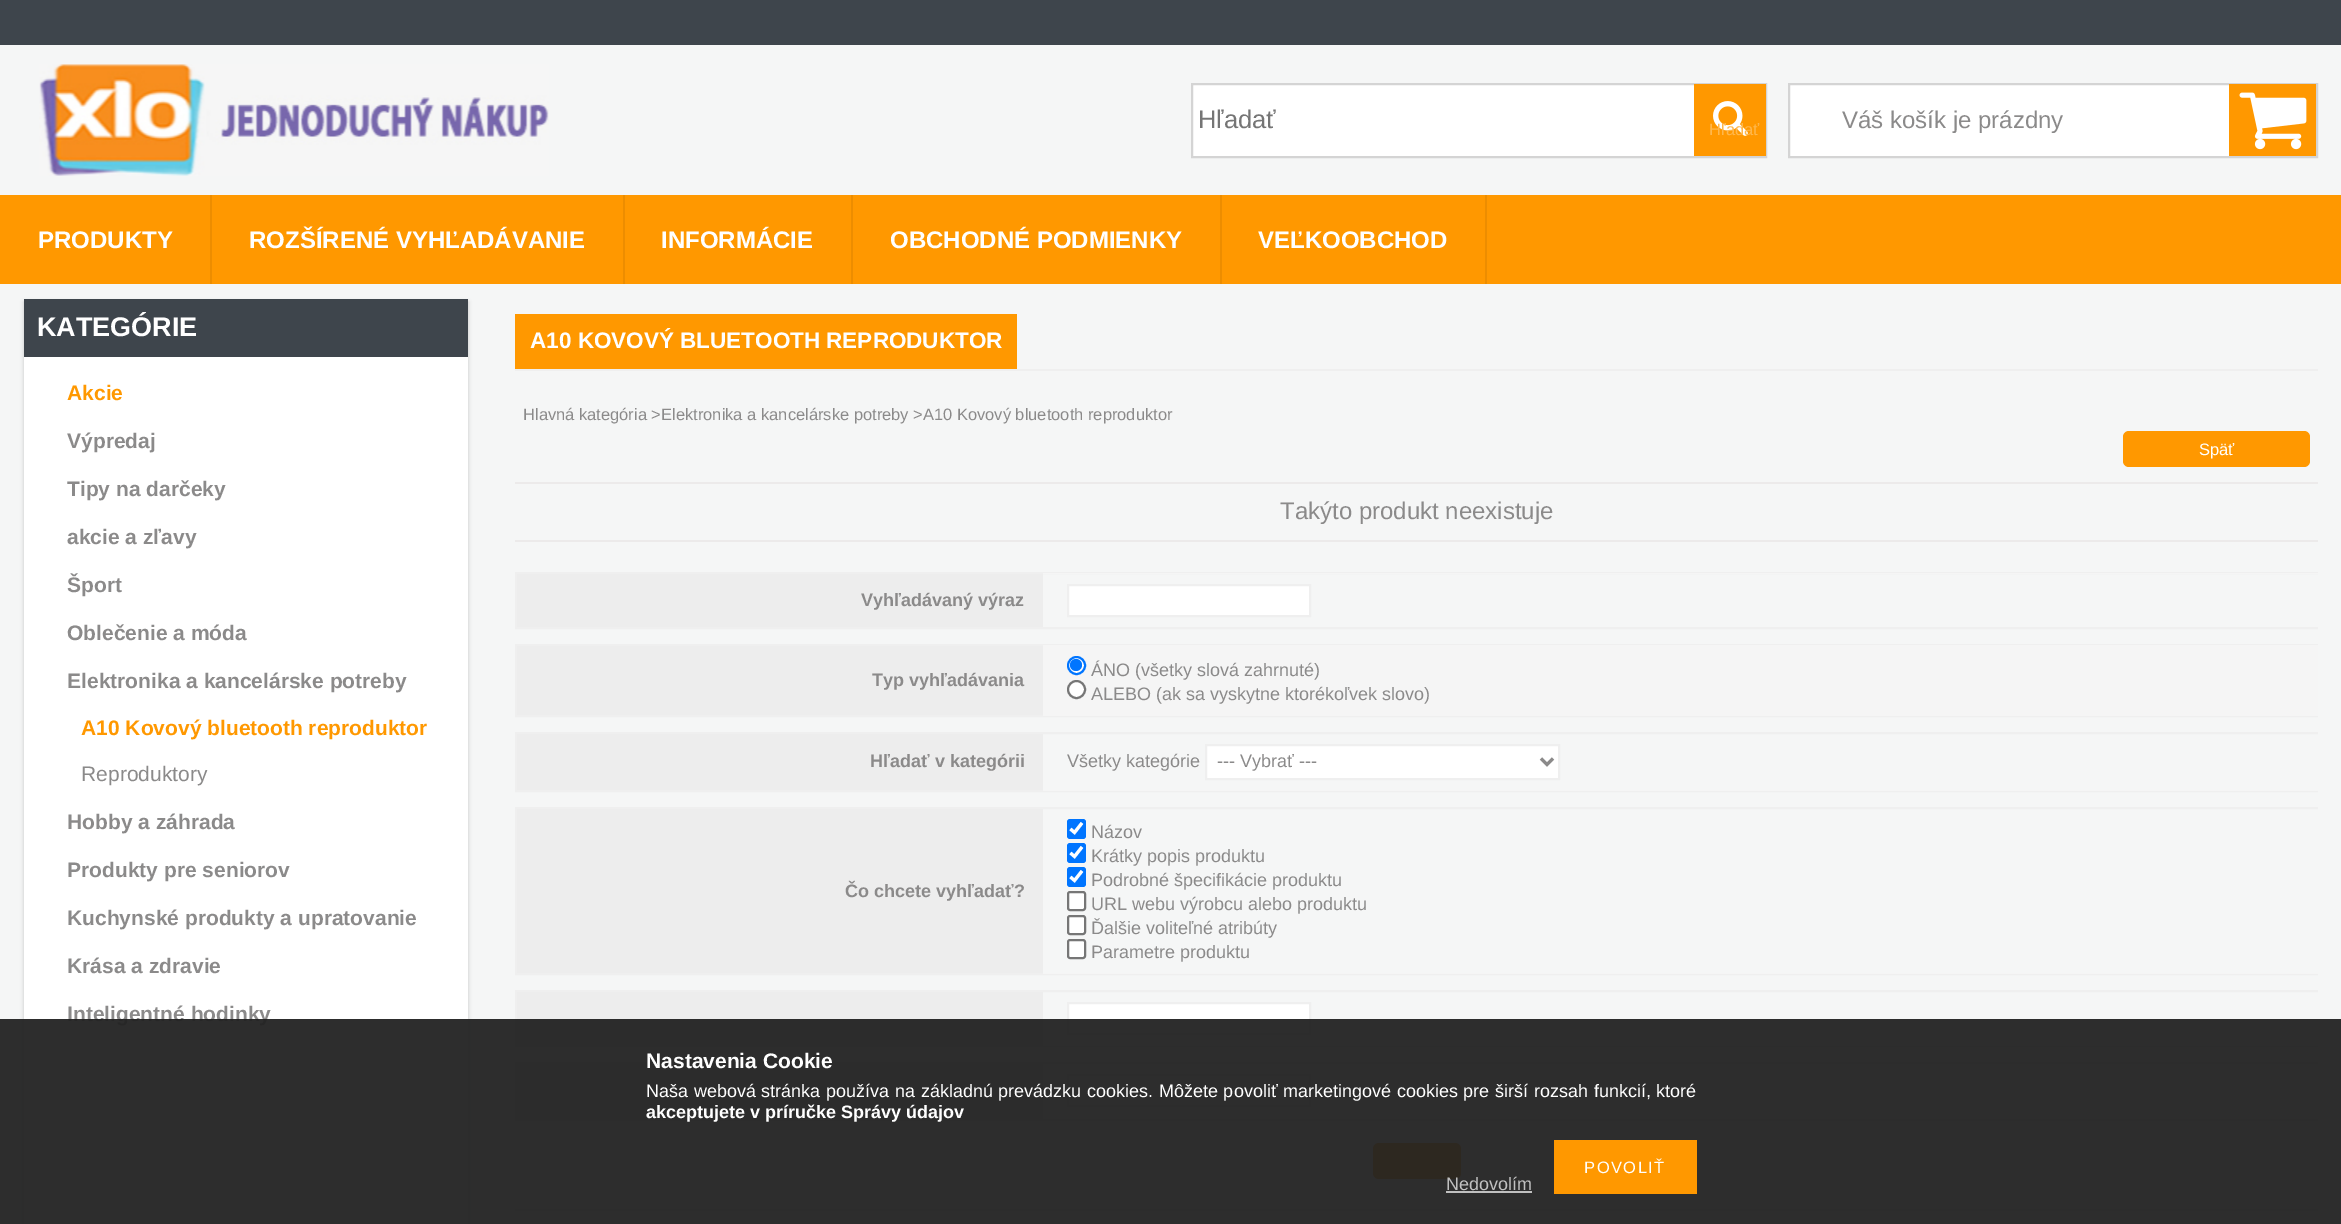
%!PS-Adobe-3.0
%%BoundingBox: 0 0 2341 1224
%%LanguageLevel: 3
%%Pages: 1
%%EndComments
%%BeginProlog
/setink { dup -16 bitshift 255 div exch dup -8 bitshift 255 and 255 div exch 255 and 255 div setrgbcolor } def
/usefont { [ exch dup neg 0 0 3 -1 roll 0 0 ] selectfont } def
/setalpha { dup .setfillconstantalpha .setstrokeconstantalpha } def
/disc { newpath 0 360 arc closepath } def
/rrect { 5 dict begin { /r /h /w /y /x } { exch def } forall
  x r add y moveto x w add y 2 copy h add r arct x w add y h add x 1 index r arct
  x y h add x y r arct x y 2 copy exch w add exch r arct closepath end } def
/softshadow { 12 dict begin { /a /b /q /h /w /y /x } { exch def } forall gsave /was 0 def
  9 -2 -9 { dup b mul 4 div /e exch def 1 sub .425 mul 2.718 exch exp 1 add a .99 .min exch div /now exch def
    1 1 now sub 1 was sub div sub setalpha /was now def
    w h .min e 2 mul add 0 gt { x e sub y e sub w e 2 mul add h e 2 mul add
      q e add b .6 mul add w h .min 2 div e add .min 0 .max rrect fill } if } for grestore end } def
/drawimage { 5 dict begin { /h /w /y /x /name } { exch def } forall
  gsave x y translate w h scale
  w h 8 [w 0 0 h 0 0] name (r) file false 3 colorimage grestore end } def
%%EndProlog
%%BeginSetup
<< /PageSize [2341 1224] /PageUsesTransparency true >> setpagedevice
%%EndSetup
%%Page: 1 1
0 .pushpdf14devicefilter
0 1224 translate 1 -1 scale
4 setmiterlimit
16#F5F6F6 setink
0 0 2341 1224 rectfill
16#3E454C setink
0 0 2341 45 rectfill
(img1.raw) 39 64 510 112 drawimage
16#FFFFFF setink
1193 85 501 71 rectfill
16#D4D4D4 setink
2 setlinewidth
1192 84 574 73 rectstroke
/LiberationSans-Regular 25.5 usefont
16#757575 setink
1198 128 moveto (Hľadať) show
16#FF9800 setink
1694 84 72 72 rectfill
(img2.raw) 1713 101 35 35 drawimage
/LiberationSans-Regular 16.5 usefont
16#FFB74C setink
1709 135 moveto (Hľadať) show
16#FFFFFF setink
1790 85 439 71 rectfill
16#D4D4D4 setink
1789 84 528 73 rectstroke
/LiberationSans-Regular 24 usefont
16#8B8A8A setink
1842 128 moveto (Váš košík je prázdny) show
16#FF9800 setink
2229 84 87 72 rectfill
(img3.raw) 2239 92 68 58 drawimage
0 195 2341 89 rectfill
gsave
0 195 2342 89 rectclip
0 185 moveto 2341 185 lineto 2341 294 lineto 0 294 lineto closepath 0 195 moveto 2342 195 lineto 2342 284 lineto 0 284 lineto closepath eoclip newpath
16#000000 setink
6 195 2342 89 0 3 0.2 softshadow
grestore
0.07 setalpha
16#000000 setink
210 195 2 89 rectfill
/LiberationSans-Bold 24 usefont
1 setalpha
16#FFFFFF setink
38 248 moveto (PRODUKTY) show
0.07 setalpha
16#000000 setink
623 195 2 89 rectfill
1 setalpha
16#FFFFFF setink
249 248 moveto (ROZŠÍRENÉ VYHĽADÁVANIE) show
0.07 setalpha
16#000000 setink
851 195 2 89 rectfill
1 setalpha
16#FFFFFF setink
661 248 moveto (INFORMÁCIE) show
0.07 setalpha
16#000000 setink
1220 195 2 89 rectfill
1 setalpha
16#FFFFFF setink
890 248 moveto (OBCHODNÉ PODMIENKY) show
0.07 setalpha
16#000000 setink
1485 195 2 89 rectfill
1 setalpha
16#FFFFFF setink
1258 248 moveto (VEĽKOOBCHOD) show
16#000000 setink
24 302 444 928 0 2 0.2 softshadow
16#3E454C setink
24 299 444 58 rectfill
/LiberationSans-Bold 27 usefont
16#FFFFFF setink
37 336 moveto (KATEGÓRIE) show
24 357 444 867 rectfill
/LiberationSans-Bold 21 usefont
16#FF9800 setink
67 400 moveto (Akcie) show
16#8B8A8A setink
[
    [(Výpredaj) 67 448]
    [(Tipy na darčeky) 67 496]
    [(akcie a zľavy) 67 544]
    [(Šport) 67 592]
    [(Oblečenie a móda) 67 640]
    [(Elektronika a kancelárske potreby) 67 688]
] { aload pop moveto show } forall
16#FF9800 setink
81 735 moveto (A10 Kovový bluetooth reproduktor) show
/LiberationSans-Regular 21 usefont
16#8B8A8A setink
81 781 moveto (Reproduktory) show
/LiberationSans-Bold 21 usefont
[
    [(Hobby a záhrada) 67 829]
    [(Produkty pre seniorov) 67 877]
    [(Kuchynské produkty a upratovanie) 67 925]
    [(Krása a zdravie) 67 973]
    [(Inteligentné hodinky) 67 1021]
] { aload pop moveto show } forall
16#EFEFEF setink
515 369 1803 2 rectfill
16#FF9800 setink
515 314 502 55 rectfill
/LiberationSans-Bold 22.5 usefont
16#FFFFFF setink
530 348 moveto (A10 KOVOVÝ BLUETOOTH REPRODUKTOR) show
/LiberationSans-Regular 16.5 usefont
16#8B8A8A setink
523 420 moveto (Hlavná kategória >Elektronika a kancelárske potreby >A10 Kovový bluetooth reproduktor) show
16#FF9800 setink
2123 431 187 36 6 rrect fill
16#FFFFFF setink
2199 455 moveto (Späť) show
16#ECEAEA setink
515 482 1803 2 rectfill
/LiberationSans-Regular 24 usefont
16#8B8A8A setink
1280 519 moveto (Takýto produkt neexistuje) show
16#ECEAEA setink
515 540 1803 2 rectfill
gsave
515 557 1803 637 rectclip
16#EFEFEF setink
516 573 1804 55 rectstroke
grestore
16#EDEDED setink
517 574 526 53 rectfill
/LiberationSans-Bold 18 usefont
16#8B8A8A setink
861 606 moveto (Vyhľadávaný výraz) show
16#F5F5F5 setink
1043 573 1275 1 rectfill
16#FFFFFF setink
1068 585 moveto 1310 585 lineto 1310 616 lineto 1068 616 lineto closepath gsave fill grestore
16#EFEFEF setink
stroke
gsave
515 557 1803 637 rectclip
516 645 1804 71 rectstroke
grestore
16#EDEDED setink
517 646 526 69 rectfill
16#8B8A8A setink
872 686 moveto (Typ vyhľadávania) show
16#F5F5F5 setink
1043 645 1275 71 rectfill
16#FFFFFF setink
1076.5 665.5 8.5 disc gsave fill grestore
16#0075FF setink
stroke
1076 665 6 disc fill
/LiberationSans-Regular 18 usefont
16#8B8A8A setink
1091 676 moveto (ÁNO \(všetky slová zahrnuté\)) show
16#FFFFFF setink
1076.5 689.5 8.5 disc gsave fill grestore
16#767676 setink
stroke
16#8B8A8A setink
1091 700 moveto (ALEBO \(ak sa vyskytne ktorékoľvek slovo\)) show
gsave
515 557 1803 637 rectclip
16#EFEFEF setink
516 733 1804 58 rectstroke
grestore
16#EDEDED setink
517 734 526 56 rectfill
/LiberationSans-Bold 18 usefont
16#8B8A8A setink
870 767 moveto (Hľadať v kategórii) show
16#F5F5F5 setink
1043 790 1275 1 rectfill
/LiberationSans-Regular 18 usefont
16#8B8A8A setink
1067 767 moveto (Všetky kategórie) show
16#FFFFFF setink
1206 745 moveto 1559 745 lineto 1559 779 lineto 1206 779 lineto closepath gsave fill grestore
16#EFEFEF setink
stroke
16#8B8A8A setink
3 setlinewidth
1541 758.5 moveto 1547 764.5 lineto 1553 758.5 lineto stroke
1217 767 moveto (--- Vybrať ---) show
gsave
515 557 1803 637 rectclip
16#EFEFEF setink
2 setlinewidth
516 808 1804 166 rectstroke
grestore
16#EDEDED setink
517 809 526 164 rectfill
/LiberationSans-Bold 18 usefont
16#8B8A8A setink
845 897 moveto (Čo chcete vyhľadať?) show
16#F5F5F5 setink
1043 973 1275 1 rectfill
16#0075FF setink
1067 819 19 20 3 rrect fill
16#FFFFFF setink
3.1 setlinewidth
1070.5 829 moveto 1074.5 832.5 lineto 1082 823 lineto stroke
/LiberationSans-Regular 18 usefont
16#8B8A8A setink
1091 838 moveto (Názov) show
16#0075FF setink
1067 843 19 20 3 rrect fill
16#FFFFFF setink
1070.5 853 moveto 1074.5 856.5 lineto 1082 847 lineto stroke
16#8B8A8A setink
1091 862 moveto (Krátky popis produktu) show
16#0075FF setink
1067 867 19 20 3 rrect fill
16#FFFFFF setink
1070.5 877 moveto 1074.5 880.5 lineto 1082 871 lineto stroke
16#8B8A8A setink
1091 886 moveto (Podrobné špecifikácie produktu) show
16#FFFFFF setink
1068 892 17 18 2 rrect gsave fill grestore
16#767676 setink
2 setlinewidth
stroke
16#8B8A8A setink
1091 910 moveto (URL webu výrobcu alebo produktu) show
16#FFFFFF setink
1068 916 17 18 2 rrect gsave fill grestore
16#767676 setink
stroke
16#8B8A8A setink
1091 934 moveto (Ďalšie voliteľné atribúty) show
16#FFFFFF setink
1068 940 17 18 2 rrect gsave fill grestore
16#767676 setink
stroke
16#8B8A8A setink
1091 958 moveto (Parametre produktu) show
gsave
515 557 1803 637 rectclip
16#EFEFEF setink
516 991 1804 55 rectstroke
grestore
16#EDEDED setink
517 992 526 53 rectfill
16#F5F5F5 setink
1043 1045 1275 1 rectfill
16#FFFFFF setink
1068 1003 moveto 1310 1003 lineto 1310 1034 lineto 1068 1034 lineto closepath gsave fill grestore
16#EFEFEF setink
stroke
gsave
515 557 1803 637 rectclip
516 1063 1804 57 rectstroke
grestore
16#EDEDED setink
517 1064 526 55 rectfill
16#FFFFFF setink
1068 1075 moveto 1310 1075 lineto 1310 1106 lineto 1068 1106 lineto closepath gsave fill grestore
16#EFEFEF setink
stroke
16#FF9800 setink
1373 1143 88 36 6 rrect fill
16#ECEAEA setink
515 1209 1803 2 rectfill
0.95 setalpha
16#222222 setink
0 1019 2341 205 rectfill
/LiberationSans-Bold 21 usefont
1 setalpha
16#FFFFFF setink
646 1068 moveto (Nastavenia Cookie) show
/LiberationSans-Regular 18 usefont
646 1097 moveto 0.7 0 32 (Naša webová stránka používa na základnú prevádzku cookies. Môžete povoliť marketingové cookies pre širší rozsah funkcií, ktoré) widthshow
/LiberationSans-Bold 18 usefont
646 1118 moveto (akceptujete v príručke Správy údajov) show
16#FF9800 setink
1554 1140 143 54 rectfill
/LiberationSans-Regular 16.5 usefont
16#FFFFFF setink
1584 1173 moveto 1.5 0 (POVOLIŤ) ashow
/LiberationSans-Regular 18 usefont
16#C0C0C0 setink
1446 1190 moveto (Nedovolím) show
1446 1191 86 2 rectfill
.poppdf14devicefilter showpage
%%EOF
